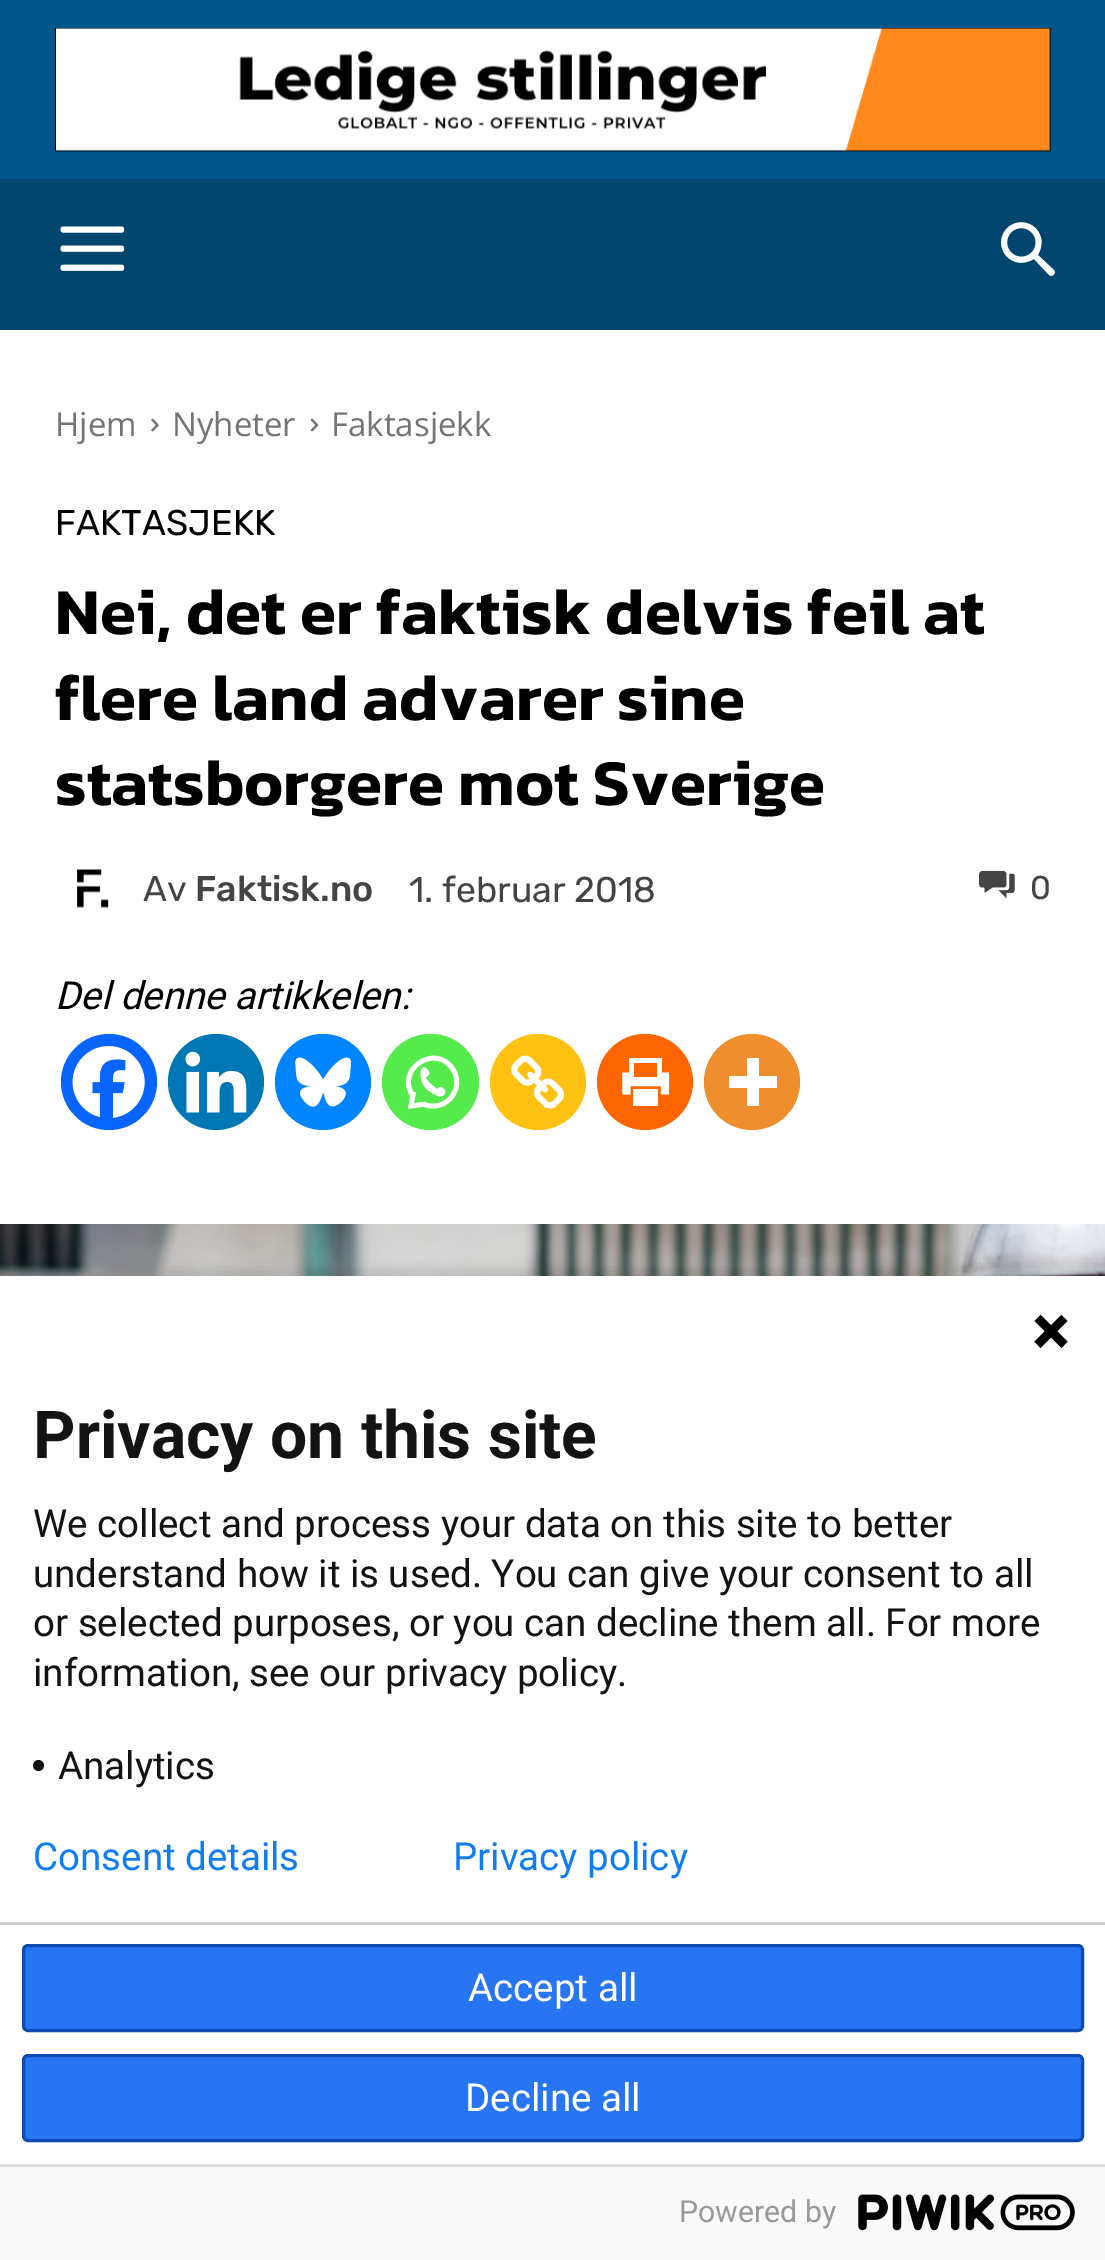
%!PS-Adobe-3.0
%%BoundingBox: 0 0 1105 2260
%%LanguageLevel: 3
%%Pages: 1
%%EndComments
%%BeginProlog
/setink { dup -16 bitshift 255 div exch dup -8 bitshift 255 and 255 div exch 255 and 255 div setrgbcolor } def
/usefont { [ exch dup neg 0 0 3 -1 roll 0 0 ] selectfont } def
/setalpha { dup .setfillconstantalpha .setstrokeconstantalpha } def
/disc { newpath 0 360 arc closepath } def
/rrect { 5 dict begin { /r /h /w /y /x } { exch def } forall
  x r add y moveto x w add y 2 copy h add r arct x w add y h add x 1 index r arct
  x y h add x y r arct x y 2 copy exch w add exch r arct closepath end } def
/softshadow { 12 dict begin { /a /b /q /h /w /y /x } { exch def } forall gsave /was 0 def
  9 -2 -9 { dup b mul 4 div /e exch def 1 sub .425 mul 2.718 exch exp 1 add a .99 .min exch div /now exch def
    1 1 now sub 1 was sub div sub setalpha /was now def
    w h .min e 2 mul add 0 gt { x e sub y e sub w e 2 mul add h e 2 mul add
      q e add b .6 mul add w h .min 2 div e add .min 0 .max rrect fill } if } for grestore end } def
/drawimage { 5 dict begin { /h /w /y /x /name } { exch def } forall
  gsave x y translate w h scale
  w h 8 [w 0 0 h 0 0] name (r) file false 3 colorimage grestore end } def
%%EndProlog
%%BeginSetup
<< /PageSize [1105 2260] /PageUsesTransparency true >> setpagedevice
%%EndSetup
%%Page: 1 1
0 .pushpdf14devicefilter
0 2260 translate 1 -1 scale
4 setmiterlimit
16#FFFFFF setink
0 0 1105 2260 rectfill
16#005689 setink
0 0 1105 179 rectfill
(img1.raw) 55 28 996 124 drawimage
16#00456E setink
0 179 1105 151 rectfill
(img2.raw) 60 226 65 45 drawimage
(img3.raw) 1001 222 54 54 drawimage
/OpenSans-Regular 33 usefont
16#747474 setink
55 436 moveto (Hjem) show
(img4.raw) 151 418 8 14 drawimage
172 436 moveto (Nyheter) show
(img5.raw) 310 418 9 14 drawimage
331 436 moveto (Faktasjekk) show
/Rubik-Regular 35.75 usefont
16#000000 setink
55 535 moveto (FAKTASJEKK) show
/Kanit-SemiBold 66 usefont
[
    [(Nei, det er faktisk delvis feil at) 55 634]
    [(flere land advarer sine) 55 720]
    [(statsborgere mot Sverige) 55 805]
] { aload pop moveto show } forall
(img6.raw) 77 869 32 39 drawimage
/Rubik-Regular 35.75 usefont
16#444444 setink
143 901 moveto (Av) show
/Rubik-Medium 35.75 usefont
195 901 moveto (Faktisk.no) show
/Rubik-Regular 35.75 usefont
409 902 moveto (1. februar 2018) show
(img7.raw) 979 870 36 29 drawimage
/Rubik-Regular 33 usefont
1030 899 moveto (0) show
/Roboto-Italic 38.5 usefont
16#000000 setink
55 1009 moveto (Del denne artikkelen:) show
16#0765FE setink
109 1082 48 disc fill
(img8.raw) 72 1046 73 72 drawimage
16#0077B5 setink
216 1082 48 disc fill
(img9.raw) 185 1051 62 62 drawimage
16#0085FF setink
323 1082 48 disc fill
(img10.raw) 295 1057 56 50 drawimage
16#55EB4C setink
382 1034 97 96 48 rrect fill
16#FFFFFF setink
4.8 setlinewidth
424.5 1104.5 moveto 437 1109.5 451.5 1102.5 455.5 1089.5 curveto 458 1083 457 1075.5 453 1069.5 curveto 436 1042 394.5 1069.5 413 1096 curveto 413.5 1092 moveto 411 1106 lineto 425.5 1104 lineto stroke
421 1070 moveto 419 1083 425.5 1092 440 1096.5 curveto 452 1094 440 1082 437.5 1089.5 curveto 431 1084.5 427 1080.5 425.5 1077.5 curveto 435 1072.5 423 1065.5 423 1067.5 curveto fill
16#FFC112 setink
538 1082 48 disc fill
(img11.raw) 511 1055 54 54 drawimage
16#FD6500 setink
645 1082 48 disc fill
(img12.raw) 622 1058 48 48 drawimage
16#EE8E2D setink
752 1082 48 disc fill
16#FFFFFF setink
759 1076 moveto 759 1058 lineto 747 1058 lineto 747 1076 lineto 729 1076 lineto 729 1088 lineto 747 1088 lineto 747 1106 lineto 759 1106 lineto 759 1088 lineto 777 1088 lineto 777 1076 lineto closepath eofill
(img13.raw) 0 1224 1105 52 drawimage
16#000000 setink
-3 1268 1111 990 0 7 0.14 softshadow
16#FFFFFF setink
0 1276 1105 888 rectfill
16#000000 setink
1034.5 1321 moveto 1040.5 1315 lineto 1067.5 1341.5 lineto 1061.5 1348 lineto 1034.5 1321 lineto fill
1061.5 1315 moveto 1067.5 1321 lineto 1040.5 1348 lineto 1034.5 1341.5 lineto 1061.5 1315 lineto fill
/Roboto-Bold 66 usefont
16#131313 setink
33 1458 moveto (Privacy on this site) show
/Roboto-Regular 38.5 usefont
[
    [(We collect and process your data on this site to better) 33 1537]
    [(understand how it is used. You can give your consent to all) 33 1587]
    [(or selected purposes, or you can decline them all. For more) 33 1636]
    [(information, see our privacy policy.) 33 1686]
] { aload pop moveto show } forall
38.5 1765.5 5.5 disc fill
58 1779 moveto (Analytics) show
16#CCCCCC setink
0 1922 1105 3 rectfill
16#2775F2 setink
23.5 1945.5 1059 85 4.5 rrect gsave fill grestore
16#0B4BB3 setink
3 setlinewidth
stroke
16#FFFFFF setink
468 2001 moveto (Accept all) show
16#2775F2 setink
23.5 2055.5 1059 85 4.5 rrect gsave fill grestore
16#0B4BB3 setink
stroke
16#FFFFFF setink
465 2111 moveto (Decline all) show
16#107EF1 setink
33 1870 moveto (Consent details) show
453 1870 moveto (Privacy policy) show
16#FAFAFA setink
0 2167 1105 93 rectfill
16#DDDDDD setink
0 2164 1105 3 rectfill
/Roboto-Regular 30.25 usefont
16#999999 setink
679 2222 moveto (Powered by) show
(img14.raw) 858 2194 217 37 drawimage
.poppdf14devicefilter showpage
%%EOF
